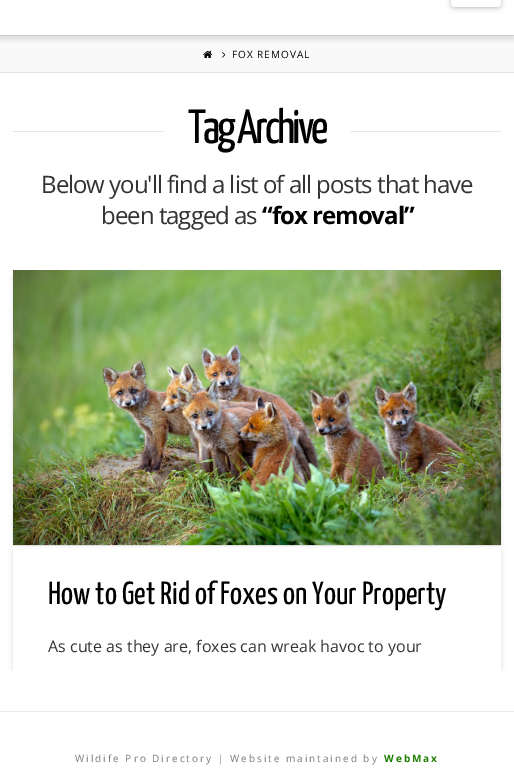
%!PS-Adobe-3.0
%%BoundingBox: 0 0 514 781
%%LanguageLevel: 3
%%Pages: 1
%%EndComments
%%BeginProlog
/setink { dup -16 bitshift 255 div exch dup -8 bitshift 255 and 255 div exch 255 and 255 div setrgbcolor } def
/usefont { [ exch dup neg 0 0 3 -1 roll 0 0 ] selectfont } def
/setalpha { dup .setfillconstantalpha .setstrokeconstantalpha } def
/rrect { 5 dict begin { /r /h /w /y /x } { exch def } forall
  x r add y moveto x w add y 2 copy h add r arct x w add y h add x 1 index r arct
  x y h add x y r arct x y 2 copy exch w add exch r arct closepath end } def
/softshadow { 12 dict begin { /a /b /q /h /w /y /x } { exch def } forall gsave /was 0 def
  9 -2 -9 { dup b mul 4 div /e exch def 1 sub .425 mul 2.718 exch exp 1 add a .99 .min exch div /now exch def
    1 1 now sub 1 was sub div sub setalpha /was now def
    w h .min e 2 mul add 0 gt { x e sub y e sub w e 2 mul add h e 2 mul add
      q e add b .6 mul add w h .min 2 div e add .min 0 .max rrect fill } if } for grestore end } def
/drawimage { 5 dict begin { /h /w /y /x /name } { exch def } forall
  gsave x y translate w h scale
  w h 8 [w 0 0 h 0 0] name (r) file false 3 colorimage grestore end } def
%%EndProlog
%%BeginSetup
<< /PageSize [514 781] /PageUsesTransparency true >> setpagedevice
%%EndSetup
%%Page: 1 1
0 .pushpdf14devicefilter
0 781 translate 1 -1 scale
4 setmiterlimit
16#FFFFFF setink
0 0 514 781 rectfill
16#F9F9F9 setink
0 36 514 36 rectfill
(img1.raw) 203 50 10 8 drawimage
gsave
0 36 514 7 rectclip
16#000000 setink
0 -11 514 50 0 3.5 0.13 softshadow
grestore
16#CCCCCC setink
0 35 514 1 rectfill
16#000000 setink
451 -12 50 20 4 2.5 0.25 softshadow
16#FFFFFF setink
451 -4 50 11 4 rrect fill
16#E0E0E0 setink
0 72 514 1 rectfill
(img2.raw) 222 52 4 6 drawimage
/OpenSans-Regular 10 usefont
16#000000 setink
232 58 moveto 1 0 (FOX REMOVAL) ashow
16#E6E6E6 setink
13 131 151 1 rectfill
/YanoneKaffeesatz-ExtraLight 48 usefont
16#000000 setink
188 143 moveto -3 0 (Tag Archive) ashow
16#E6E6E6 setink
350 131 151 1 rectfill
/OpenSans-Regular 24 usefont
16#333333 setink
41 193 moveto -1 0 (Below you'll find a list of all posts that have) ashow
101 224 moveto -1 0 (been tagged as) ashow
/OpenSans-Bold 24 usefont
16#000000 setink
262 224 moveto -1 0 (“fox removal”) ashow
13 276 480 268 0 2 0.13 softshadow
21 276 480 268 0 2 0.13 softshadow
16#E9E9E9 setink
0 711 514 1 rectfill
gsave
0 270 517 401 rectclip
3 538 moveto 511 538 lineto 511 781 lineto 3 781 lineto closepath 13 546 moveto 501 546 lineto 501 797 lineto 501 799 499 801 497 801 curveto 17 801 lineto 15 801 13 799 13 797 curveto closepath eoclip newpath
16#000000 setink
13 548 488 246 4 3 0.13 softshadow
grestore
16#DDDDDD setink
13 545 488 1 rectfill
(img3.raw) 13 270 488 275 drawimage
/YanoneKaffeesatz-ExtraLight 32 usefont
16#000000 setink
48 604 moveto (How to Get Rid of Foxes on Your Property) show
/OpenSans-Regular 16 usefont
16#333333 setink
48 652 moveto (As cute as they are, foxes can wreak havoc to your) show
/OpenSans-Regular 10 usefont
16#7A7A7A setink
75 762 moveto 2 0 (Wildife Pro Directory | Website maintained by) ashow
/OpenSans-Bold 10 usefont
16#1B7C00 setink
384 762 moveto 2 0 (WebMax) ashow
.poppdf14devicefilter showpage
%%EOF
